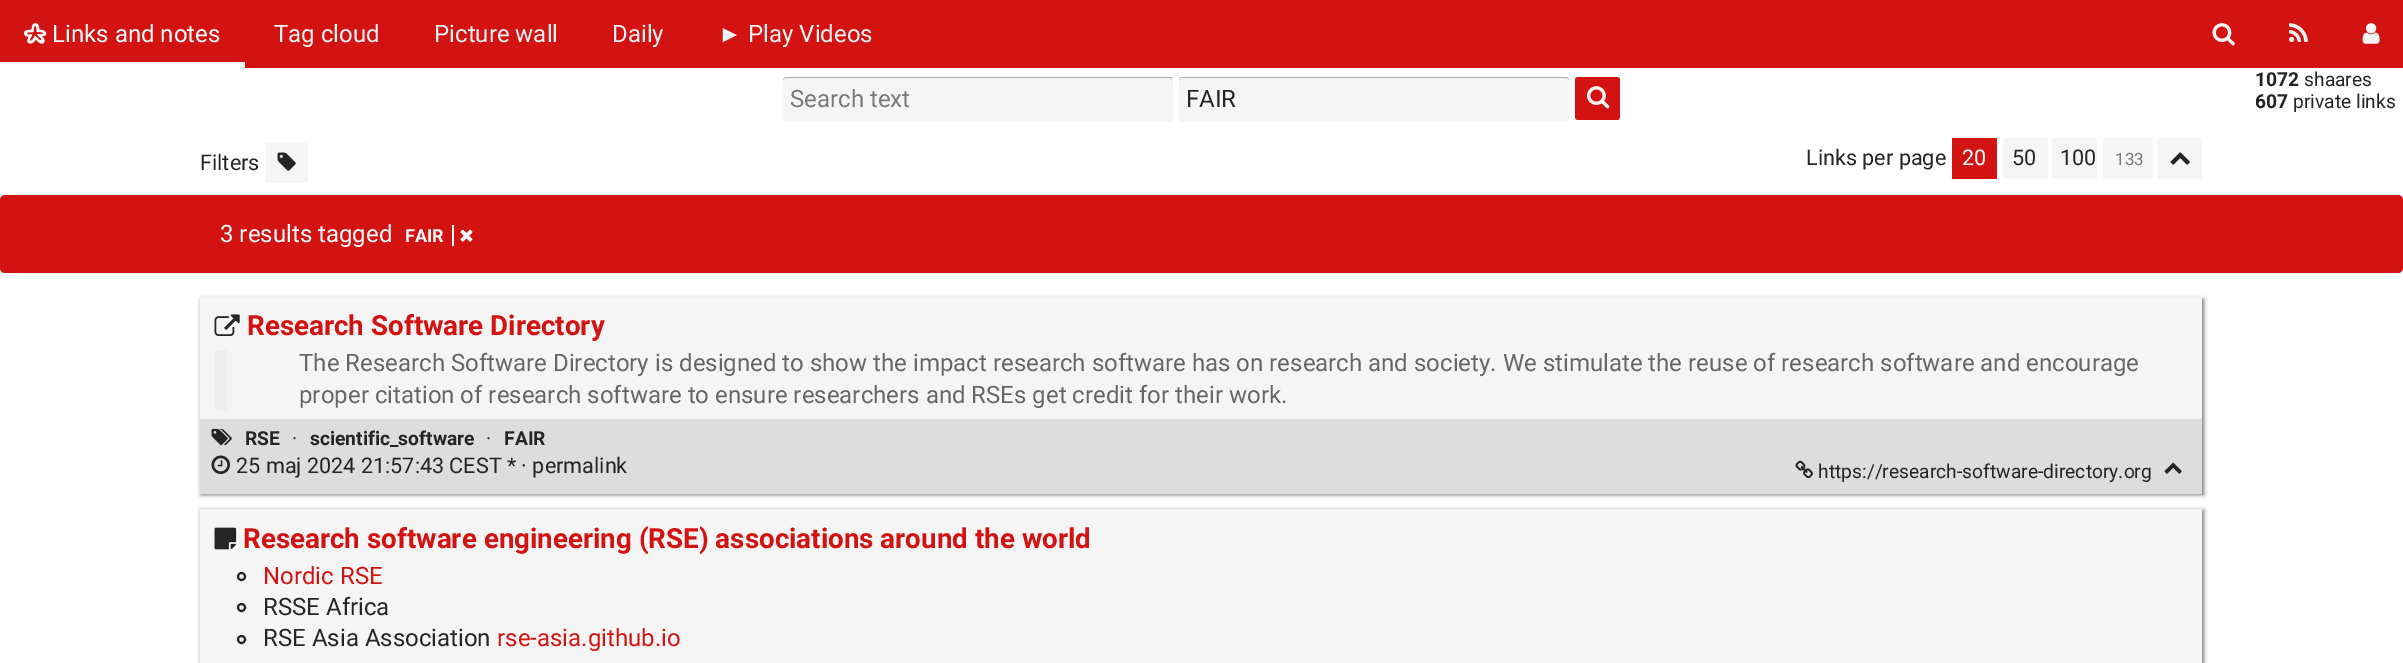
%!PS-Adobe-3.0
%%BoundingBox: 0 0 2403 663
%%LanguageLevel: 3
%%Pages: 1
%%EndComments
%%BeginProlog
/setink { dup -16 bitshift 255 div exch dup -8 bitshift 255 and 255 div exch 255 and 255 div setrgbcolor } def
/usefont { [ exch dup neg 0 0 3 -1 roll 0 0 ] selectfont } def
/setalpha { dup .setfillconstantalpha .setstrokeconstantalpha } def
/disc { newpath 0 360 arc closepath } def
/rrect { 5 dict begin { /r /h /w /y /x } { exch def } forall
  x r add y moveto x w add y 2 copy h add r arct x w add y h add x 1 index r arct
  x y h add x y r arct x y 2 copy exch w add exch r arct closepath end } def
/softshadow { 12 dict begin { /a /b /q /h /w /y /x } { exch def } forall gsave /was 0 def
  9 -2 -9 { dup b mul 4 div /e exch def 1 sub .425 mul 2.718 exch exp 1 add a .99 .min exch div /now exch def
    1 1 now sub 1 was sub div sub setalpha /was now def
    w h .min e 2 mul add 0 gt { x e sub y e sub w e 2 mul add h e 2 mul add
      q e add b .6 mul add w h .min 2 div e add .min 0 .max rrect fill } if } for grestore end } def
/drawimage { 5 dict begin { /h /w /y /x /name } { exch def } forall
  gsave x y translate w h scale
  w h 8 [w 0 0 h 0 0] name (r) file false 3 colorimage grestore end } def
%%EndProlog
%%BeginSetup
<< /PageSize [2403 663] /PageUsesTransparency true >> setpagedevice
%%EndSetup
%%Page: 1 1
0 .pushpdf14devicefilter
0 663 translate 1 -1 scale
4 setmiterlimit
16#FFFFFF setink
0 0 2403 663 rectfill
16#D31212 setink
0 0 2403 68 rectfill
(img1.raw) 24 23 23 21 drawimage
/Roboto-Regular 24 usefont
16#FFFFFF setink
52 42 moveto (Links and notes) show
0 62 245 6 rectfill
16#F5F5F5 setink
[
    [(Tag cloud) 274 42]
    [(Picture wall) 434 42]
    [(Daily) 612 42]
] { aload pop moveto show } forall
/LiberationSans-Regular 24 usefont
718 42 moveto (►) show
/Roboto-Regular 24 usefont
748 42 moveto (Play Videos) show
(img2.raw) 2212 23 23 23 drawimage
(img3.raw) 2289 23 19 19 drawimage
(img4.raw) 2362 23 18 21 drawimage
783 77 390 45 3 rrect fill
16#ACACAC setink
786 78 moveto 1170 78 lineto 1172 78 1173 79 1173 81 curveto 1173 79 1172 77 1170 77 curveto 786 77 lineto 784 78 lineto 783 81 lineto 783 79 784 78 786 78 curveto closepath fill
16#797979 setink
790 107 moveto (Search text) show
16#F5F5F5 setink
1179 77 390 45 3 rrect fill
16#ACACAC setink
1182 78 moveto 1566 78 lineto 1568 78 1569 79 1569 81 curveto 1569 79 1568 77 1566 77 curveto 1182 77 lineto 1180 78 lineto 1179 81 lineto 1179 79 1180 78 1182 78 curveto closepath fill
16#252525 setink
1186 107 moveto (FAIR) show
16#D31212 setink
1575 77 45 43 3 rrect fill
(img5.raw) 1587 86 23 23 drawimage
/Roboto-Bold 19.25 usefont
16#252525 setink
2255 86 moveto (1072) show
/Roboto-Regular 19.25 usefont
2304 86 moveto (shaares) show
/Roboto-Bold 19.25 usefont
2255 108 moveto (607) show
/Roboto-Regular 19.25 usefont
2293 108 moveto (private links) show
/Roboto-Regular 21.6 usefont
200 170 moveto (Filters) show
16#F5F5F5 setink
266 143 42 40 rectfill
(img6.raw) 277 152 19 19 drawimage
16#252525 setink
1806 165 moveto (Links per page) show
16#D31212 setink
1952 138 45 41 rectfill
16#FFFFFF setink
1962 165 moveto (20) show
16#F5F5F5 setink
2003 138 45 41 rectfill
16#252525 setink
2012 165 moveto (50) show
16#F5F5F5 setink
2052 138 45 41 rectfill
16#252525 setink
2060 165 moveto (100) show
16#F5F5F5 setink
2103 138 50 41 rectfill
/Roboto-Regular 17 usefont
16#797979 setink
2115 165 moveto (133) show
16#F5F5F5 setink
2157 138 45 41 rectfill
(img7.raw) 2170 152 20 13 drawimage
16#D31212 setink
0 195 2403 78 5 rrect fill
/Roboto-Regular 24 usefont
16#FFFFFF setink
220 242 moveto (3 results tagged) show
/Roboto-Bold 18 usefont
405 242 moveto (FAIR) show
452 225 2 21 rectfill
(img8.raw) 460 229 13 13 drawimage
16#797979 setink
201 299 2003 196 0 2 1 softshadow
16#F5F5F5 setink
200 297 2002 122 rectfill
(img9.raw) 214 314 26 22 drawimage
/Roboto-Bold 27.75 usefont
16#D31212 setink
247 335 moveto (Research Software Directory) show
16#EEEEEE setink
215 350 12 61 rectfill
/Roboto-Regular 24 usefont
16#666666 setink
299 371 moveto (The Research Software Directory is designed to show the impact research software has on research and society. We stimulate the reuse of research software and encourage) show
299 403 moveto (proper citation of research software to ensure researchers and RSEs get credit for their work.) show
16#DDDDDD setink
200 419 2002 75 rectfill
(img10.raw) 211 428 21 18 drawimage
/Roboto-Bold 19.25 usefont
16#252525 setink
245 445 moveto (RSE) show
/Roboto-Regular 19.25 usefont
292 445 moveto (·) show
/Roboto-Bold 19.25 usefont
310 445 moveto (scientific_software) show
/Roboto-Regular 19.25 usefont
486 445 moveto (·) show
/Roboto-Bold 19.25 usefont
504 445 moveto (FAIR) show
(img11.raw) 211 455 19 19 drawimage
/Roboto-Regular 21.6 usefont
236 473 moveto (25 maj 2024 21:57:43 CEST * · permalink) show
(img12.raw) 1795 460 18 19 drawimage
/Roboto-Regular 19.25 usefont
1818 478 moveto (https://research-software-directory.org) show
(img13.raw) 2164 462 18 12 drawimage
16#797979 setink
201 510 2003 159 0 2 1 softshadow
16#F5F5F5 setink
200 509 2002 154 rectfill
(img14.raw) 214 527 23 23 drawimage
/Roboto-Bold 27.75 usefont
16#D31212 setink
243 548 moveto (Research software engineering \(RSE\) associations around the world) show
16#252525 setink
2 setlinewidth
241.5 576.5 3.5 disc stroke
/Roboto-Regular 24 usefont
16#D31212 setink
263 584 moveto (Nordic RSE) show
16#252525 setink
241.5 607.5 3.5 disc stroke
263 615 moveto (RSSE Africa) show
241.5 639.5 3.5 disc stroke
263 646 moveto (RSE Asia Association) show
16#D31212 setink
497 646 moveto (rse-asia.github.io) show
.poppdf14devicefilter showpage
%%EOF
